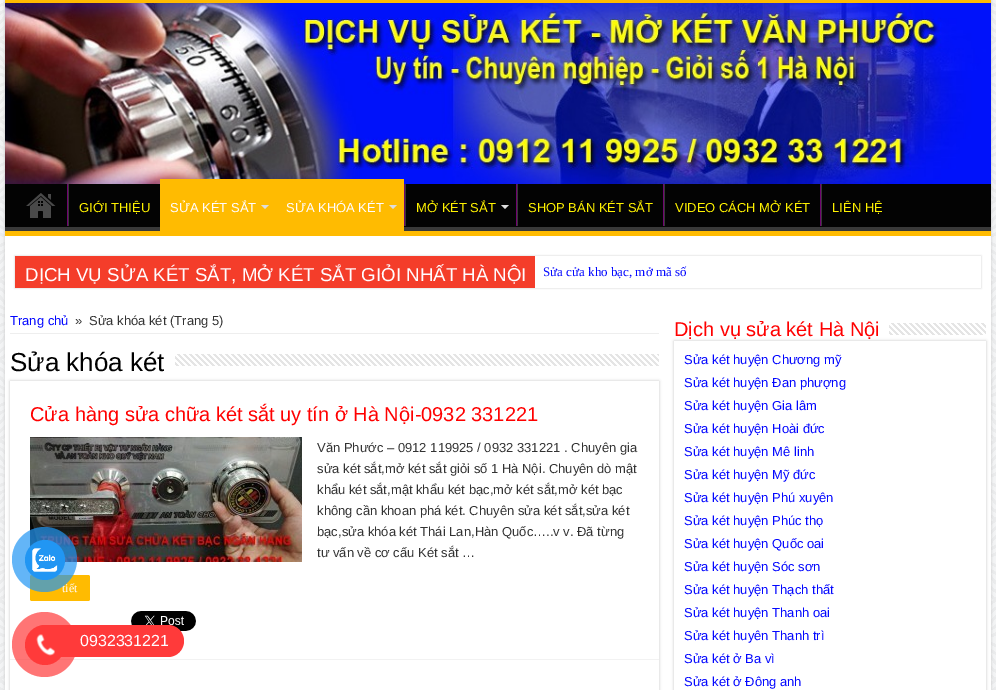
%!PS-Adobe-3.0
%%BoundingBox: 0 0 996 690
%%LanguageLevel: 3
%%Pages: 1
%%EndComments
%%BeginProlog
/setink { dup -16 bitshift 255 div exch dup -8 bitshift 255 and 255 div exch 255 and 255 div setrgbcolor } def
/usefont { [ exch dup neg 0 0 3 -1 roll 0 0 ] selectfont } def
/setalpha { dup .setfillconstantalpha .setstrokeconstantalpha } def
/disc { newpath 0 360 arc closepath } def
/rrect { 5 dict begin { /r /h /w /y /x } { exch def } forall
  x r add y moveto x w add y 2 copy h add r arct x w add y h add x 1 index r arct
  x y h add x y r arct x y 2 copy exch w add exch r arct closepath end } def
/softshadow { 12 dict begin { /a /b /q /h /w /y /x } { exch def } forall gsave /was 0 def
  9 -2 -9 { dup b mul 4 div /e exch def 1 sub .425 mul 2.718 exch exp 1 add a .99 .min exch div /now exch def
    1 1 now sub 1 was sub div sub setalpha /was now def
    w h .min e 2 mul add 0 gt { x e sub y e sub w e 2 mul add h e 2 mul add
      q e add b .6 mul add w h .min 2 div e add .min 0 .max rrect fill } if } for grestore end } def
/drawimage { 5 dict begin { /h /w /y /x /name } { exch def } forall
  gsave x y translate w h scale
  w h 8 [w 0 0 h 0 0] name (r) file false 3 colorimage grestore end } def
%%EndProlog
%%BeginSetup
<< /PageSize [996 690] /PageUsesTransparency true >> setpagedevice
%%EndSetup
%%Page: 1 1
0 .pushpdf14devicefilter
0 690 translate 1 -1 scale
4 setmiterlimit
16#FFFFFF setink
0 0 996 690 rectfill
(img1.raw) 0 0 996 690 drawimage
16#CACACA setink
5 0 986 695 0 1.5 1 softshadow
16#FFFFFF setink
5 236 986 454 rectfill
16#FFBB01 setink
5 0 986 3 rectfill
(img2.raw) 5 3 986 181 drawimage
16#030303 setink
5 184 986 43 rectfill
gsave
5 184 986 47 rectclip
16#393939 setink
-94 85 moveto 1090 85 lineto 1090 330 lineto -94 330 lineto closepath 4 178 moveto 990 178 lineto 992 178 991 186 991 187 curveto 991 227 lineto 990 227 lineto 4 227 lineto 3 227 lineto 3 179 lineto closepath eofill
grestore
16#FFBB01 setink
5 231 986 5 rectfill
(img3.raw) 26 193 30 25 drawimage
16#700470 setink
67 184 1 42 rectfill
16#383838 setink
68 184 1 42 rectfill
/LiberationSans-Regular 13 usefont
16#FFF200 setink
79 212 moveto (GIỚI THIỆU) show
16#FFBB01 setink
160 179 244 52 rectfill
16#FFFCFF setink
170 212 moveto (SỬA KÉT SẮT) show
16#DDDDDD setink
261 205 moveto 269 205 lineto 265 209 lineto closepath fill
16#FFFCFF setink
286 212 moveto (SỬA KHÓA KÉT) show
16#DDDDDD setink
389 205 moveto 397 205 lineto 393 209 lineto closepath fill
16#700470 setink
404 184 1 42 rectfill
16#383838 setink
405 184 1 42 rectfill
16#FFF200 setink
416 212 moveto (MỞ KÉT SẮT) show
16#DDDDDD setink
501 205 moveto 509 205 lineto 505 209 lineto closepath fill
16#700470 setink
516 184 1 42 rectfill
16#383838 setink
517 184 1 42 rectfill
16#FFF200 setink
528 212 moveto (SHOP BÁN KÉT SẮT) show
16#700470 setink
663 184 1 42 rectfill
16#383838 setink
664 184 1 42 rectfill
16#FFF200 setink
675 212 moveto (VIDEO CÁCH MỞ KÉT) show
16#700470 setink
820 184 1 42 rectfill
16#383838 setink
821 184 1 42 rectfill
16#FFF200 setink
832 212 moveto (LIÊN HỆ) show
gsave
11 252 moveto 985 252 lineto 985 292 lineto 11 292 lineto closepath 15 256 moveto 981 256 lineto 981 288 lineto 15 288 lineto closepath eoclip newpath
16#CACACA setink
15 256 966 32 0 1 1 softshadow
grestore
16#F43D2A setink
15 256 520 32 rectfill
/LiberationSans-Regular 18.7 usefont
16#FFFCFF setink
25 281 moveto (DỊCH VỤ SỬA KÉT SẮT, MỞ KÉT SẮT GIỎI NHẤT HÀ NỘI) show
/LiberationSerif-Regular 13 usefont
16#0307FF setink
543 276 moveto (Sửa cửa kho bạc, mở mã số) show
16#EEEEEE setink
10 333 649 1 rectfill
/LiberationSans-Regular 13 usefont
16#0307FF setink
10 325 moveto (Trang chủ) show
16#333333 setink
75 325 moveto (») show
89 325 moveto (Sửa khóa két \(Trang 5\)) show
/LiberationSans-Regular 26 usefont
16#000000 setink
10 371 moveto (Sửa khóa két) show
(img4.raw) 175 354 484 12 drawimage
gsave
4 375 moveto 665 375 lineto 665 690 lineto 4 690 lineto closepath 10 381 moveto 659 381 lineto 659 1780 lineto 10 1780 lineto closepath eoclip newpath
16#CACACA setink
10 381 649 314 0 1.5 1 softshadow
grestore
16#F2F2F2 setink
10 659 649 1 rectfill
/LiberationSans-Regular 20 usefont
16#FF0000 setink
30 421 moveto (Cửa hàng sửa chữa két sắt uy tín ở Hà Nội-0932 331221) show
(img5.raw) 30 437 272 125 drawimage
/LiberationSans-Regular 13 usefont
16#333333 setink
[
    [(Văn Phước – 0912 119925 / 0932 331221 . Chuyên gia) 317 452]
    [(sửa két sắt,mở két sắt giỏi số 1 Hà Nội. Chuyên dò mật) 317 473]
    [(khẩu két sắt,mật khẩu két bạc,mở két sắt,mở két bạc) 317 494]
    [(không cần khoan phá két. Chuyên sửa két sắt,sửa két) 317 515]
    [(bạc,sửa khóa két Thái Lan,Hàn Quốc…..v v. Đã từng) 317 536]
    [(tư vấn về cơ cấu Két sắt …) 317 557]
] { aload pop moveto show } forall
16#FFBB01 setink
30 575 60 26 2 rrect fill
/LiberationSerif-Regular 12 usefont
16#FFFCFF setink
62 592 moveto (tiết) show
(img6.raw) 131 611 65 20 drawimage
gsave
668 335 moveto 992 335 lineto 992 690 lineto 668 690 lineto closepath 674 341 moveto 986 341 lineto 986 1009 lineto 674 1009 lineto closepath eoclip newpath
16#CACACA setink
674 341 312 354 0 1.5 1 softshadow
grestore
/LiberationSans-Regular 20 usefont
16#FF0000 setink
674 336 moveto (Dịch vụ sửa két Hà Nội) show
(img7.raw) 889 323 97 12 drawimage
/LiberationSans-Regular 13 usefont
16#0307FF setink
[
    [(Sửa két huyện Chương mỹ) 684 364]
    [(Sửa két huyện Đan phượng) 684 387]
    [(Sửa két huyện Gia lâm) 684 410]
    [(Sửa két huyện Hoài đức) 684 433]
    [(Sửa két huyện Mê linh) 684 456]
    [(Sửa két huyện Mỹ đức) 684 479]
    [(Sửa két huyện Phú xuyên) 684 502]
    [(Sửa két huyện Phúc thọ) 684 525]
    [(Sửa két huyện Quốc oai) 684 548]
    [(Sửa két huyện Sóc sơn) 684 571]
    [(Sửa két huyện Thạch thất) 684 594]
    [(Sửa két huyện Thanh oai) 684 617]
    [(Sửa két huyên Thanh trì) 684 640]
    [(Sửa két ở Ba vì) 684 663]
    [(Sửa két ở Đông anh) 684 686]
] { aload pop moveto show } forall
0.7 setalpha
16#2196F3 setink
44.5 559.5 32.5 disc fill
1 setalpha
45 560 20 disc fill
(img8.raw) 32 548 26 24 drawimage
16#FF3A3A setink
30 625 154 32 16 rrect fill
0.7 setalpha
44.5 644.5 32.5 disc fill
1 setalpha
45 645 20 disc fill
(img9.raw) 36 634 19 22 drawimage
/LiberationSans-Regular 16 usefont
16#FFFCFF setink
80 646 moveto (0932331221) show
.poppdf14devicefilter showpage
%%EOF
